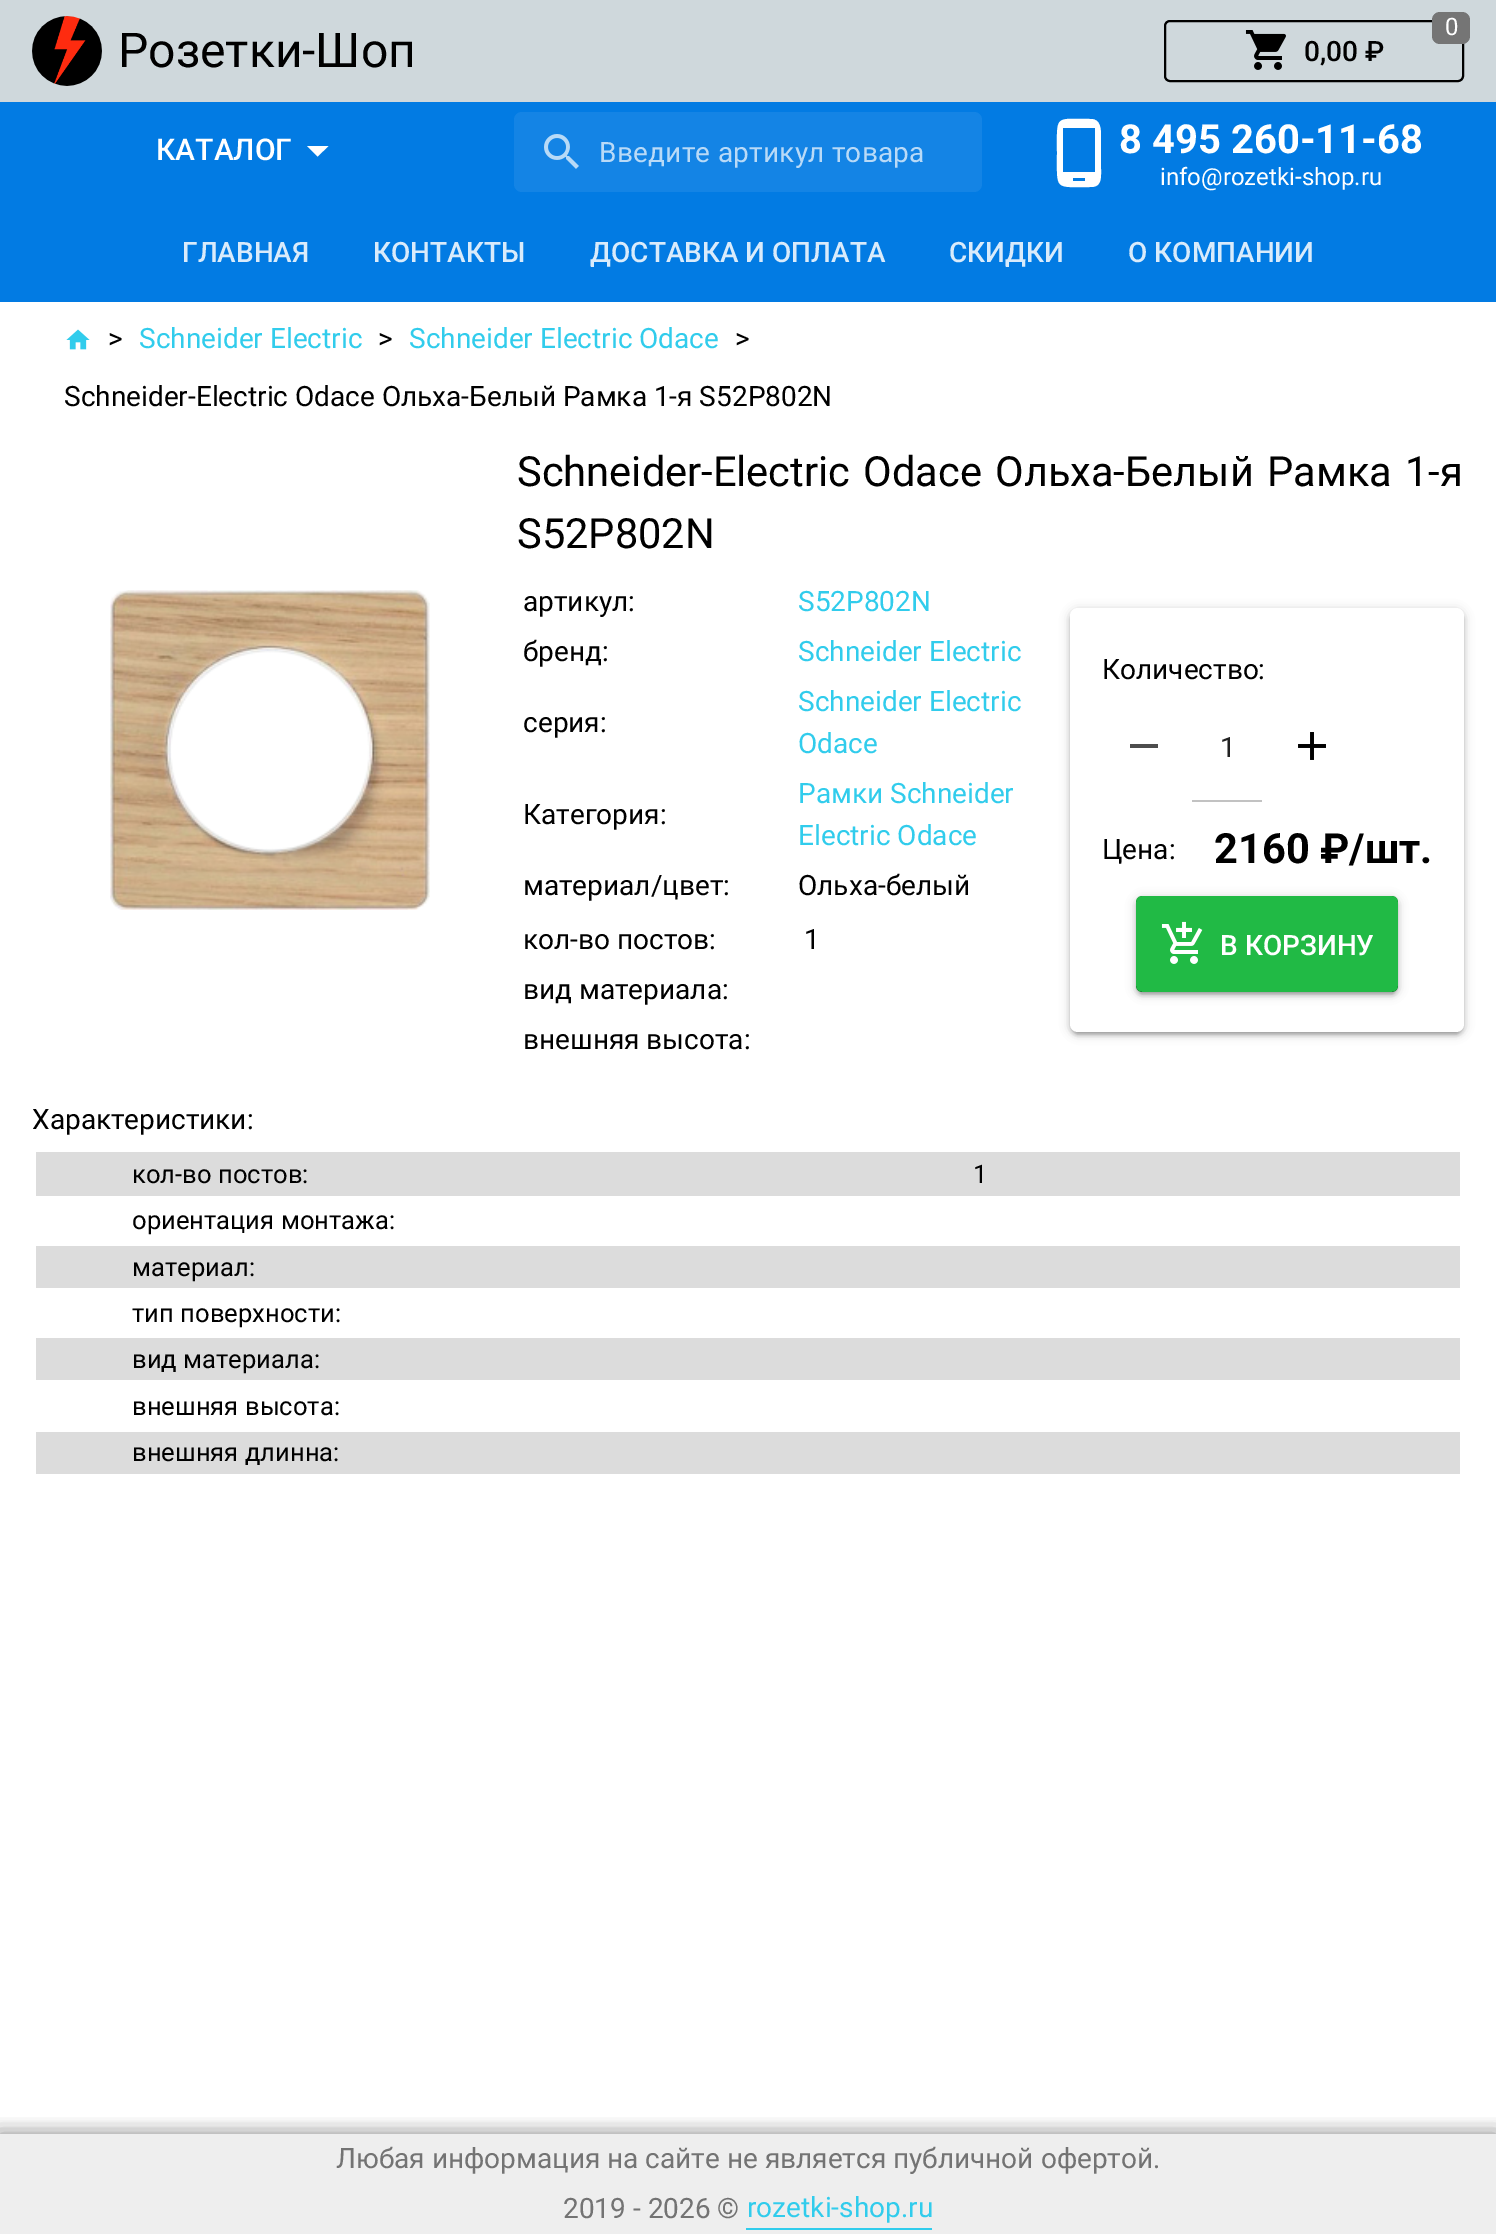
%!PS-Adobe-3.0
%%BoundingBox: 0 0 1496 2234
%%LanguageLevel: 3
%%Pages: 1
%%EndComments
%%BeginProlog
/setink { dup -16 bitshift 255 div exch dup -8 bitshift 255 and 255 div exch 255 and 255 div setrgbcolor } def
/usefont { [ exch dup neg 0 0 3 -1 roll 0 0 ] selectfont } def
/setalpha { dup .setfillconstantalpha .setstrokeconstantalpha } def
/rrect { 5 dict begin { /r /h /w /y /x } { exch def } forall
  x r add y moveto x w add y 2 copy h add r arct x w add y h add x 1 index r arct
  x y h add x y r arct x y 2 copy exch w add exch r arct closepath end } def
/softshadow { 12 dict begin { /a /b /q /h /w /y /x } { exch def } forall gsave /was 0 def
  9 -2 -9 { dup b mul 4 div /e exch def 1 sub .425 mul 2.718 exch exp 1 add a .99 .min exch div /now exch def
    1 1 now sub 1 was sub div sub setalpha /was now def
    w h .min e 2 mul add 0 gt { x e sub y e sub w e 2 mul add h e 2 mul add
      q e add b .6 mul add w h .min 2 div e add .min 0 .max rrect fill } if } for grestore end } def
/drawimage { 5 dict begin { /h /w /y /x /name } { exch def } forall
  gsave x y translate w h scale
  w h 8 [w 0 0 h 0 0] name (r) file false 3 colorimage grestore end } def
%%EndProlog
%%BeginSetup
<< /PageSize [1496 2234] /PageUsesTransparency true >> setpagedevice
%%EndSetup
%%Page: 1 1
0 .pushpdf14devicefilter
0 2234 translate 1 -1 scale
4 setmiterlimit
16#FFFFFF setink
0 0 1496 2234 rectfill
16#CFD8DC setink
0 0 1496 102 rectfill
(img1.raw) 32 16 70 70 drawimage
/Roboto-Regular 48 usefont
16#000000 setink
118 67 moveto (Розетки-Шоп) show
2 setlinewidth
1165 21 298 60 5 rrect stroke
16#757575 setink
1432 12 38 32 8 rrect fill
/Roboto-Regular 24 usefont
16#FFFFFF setink
1445 35 moveto (0) show
(img2.raw) 1245 30 41 40 drawimage
/Roboto-Medium 28 usefont
16#000000 setink
1304 61 moveto (0,00 ₽) show
16#027BE3 setink
0 102 1496 200 rectfill
/Roboto-Medium 30 usefont
16#FFFFFF setink
156 160 moveto (КАТАЛОГ) show
307 146 moveto 328.5 146 lineto 317.5 156.5 lineto closepath fill
16#1484E5 setink
514 112 468 80 8 rrect fill
(img3.raw) 544 134 35 35 drawimage
/Roboto-Regular 28 usefont
16#B9DAF7 setink
599 162 moveto 0.25 0 (Введите артикул товара) ashow
16#FFFFFF setink
1095 172 moveto 1095 128 lineto 1063 128 lineto 1063 172 lineto closepath 1085 181 moveto 1085 178 lineto 1073 178 lineto 1073 181 lineto closepath 1091 119 moveto 1101 119 1101 130 1101 137 curveto 1101 169 lineto 1101 177 1102 187 1091 187 curveto 1054 187 1057 191 1057 153 curveto 1057 114 1054 119 1091 119 curveto closepath fill
/Roboto-Bold 40 usefont
1119 153 moveto (8 495 260-11-68) show
/Roboto-Regular 24 usefont
1160 185 moveto (info@rozetki-shop.ru) show
/Roboto-Medium 28 usefont
16#D9EBFB setink
[
    [(ГЛАВНАЯ) 182 262]
    [(КОНТАКТЫ) 373 262]
    [(ДОСТАВКА И ОПЛАТА) 590 262]
    [(СКИДКИ) 949 262]
    [(О КОМПАНИИ) 1128 262]
] { aload pop moveto show } forall
(img4.raw) 66 329 24 21 drawimage
/Roboto-Regular 28 usefont
16#000000 setink
108 348 moveto (>) show
16#31CCEC setink
139 348 moveto (Schneider Electric) show
16#000000 setink
378 348 moveto (>) show
16#31CCEC setink
409 348 moveto (Schneider Electric Odace) show
16#000000 setink
735 348 moveto (>) show
64 406 moveto (Schneider-Electric Odace Ольха-Белый Рамка 1-я S52P802N) show
(img5.raw) 110 590 320 320 drawimage
/Roboto-Regular 41.6 usefont
517 486 moveto 3 0 32 (Schneider-Electric Odace Ольха-Белый Рамка 1-я) widthshow
517 548 moveto (S52P802N) show
/Roboto-Regular 28 usefont
523 611 moveto (артикул:) show
16#31CCEC setink
798 611 moveto (S52P802N) show
16#000000 setink
523 661 moveto (бренд:) show
16#31CCEC setink
798 661 moveto (Schneider Electric) show
16#000000 setink
523 732 moveto (серия:) show
16#31CCEC setink
798 711 moveto (Schneider Electric) show
798 753 moveto (Odace) show
16#000000 setink
523 824 moveto (Категория:) show
16#31CCEC setink
798 803 moveto (Рамки Schneider) show
798 845 moveto (Electric Odace) show
16#000000 setink
[
    [(материал/цвет:) 523 895]
    [(Ольха-белый) 798 895]
    [(кол-во постов:) 523 949]
    [(1) 804 949]
    [(вид материала:) 523 999]
    [(внешняя высота:) 523 1049]
] { aload pop moveto show } forall
1074 618 386 416 4 1 0.12 softshadow
1070 612 394 424 8 2 0.14 softshadow
1070 610 394 424 8 5 0.2 softshadow
16#FFFFFF setink
1070 608 394 424 8 rrect fill
16#000000 setink
1102 679 moveto (Количество:) show
16#4D4D4D setink
1130 744 28 4 rectfill
16#212121 setink
1220 757 moveto 0.25 0 (1) ashow
16#C2C2C2 setink
1192 800 70 2 rectfill
(img6.raw) 1298 732 28 28 drawimage
16#000000 setink
1102 859 moveto (Цена:) show
/Roboto-Bold 41.6 usefont
1214 863 moveto (2160 ₽/шт.) show
16#21BA45 setink
1136 896 262 96 6 rrect fill
gsave
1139 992 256 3 rectclip
16#000000 setink
1140 906 254 88 2 1 0.12 softshadow
grestore
gsave
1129 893 moveto 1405 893 lineto 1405 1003 lineto 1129 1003 lineto closepath 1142 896 moveto 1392 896 lineto 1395.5 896 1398 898.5 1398 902 curveto 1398 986 lineto 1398 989.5 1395.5 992 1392 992 curveto 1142 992 lineto 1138.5 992 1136 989.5 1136 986 curveto 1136 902 lineto 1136 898.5 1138.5 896 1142 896 curveto closepath eoclip newpath
16#000000 setink
1136 900 262 96 6 2 0.14 softshadow
grestore
gsave
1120 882 moveto 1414 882 lineto 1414 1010 lineto 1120 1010 lineto closepath 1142 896 moveto 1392 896 lineto 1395.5 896 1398 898.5 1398 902 curveto 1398 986 lineto 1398 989.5 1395.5 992 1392 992 curveto 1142 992 lineto 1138.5 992 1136 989.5 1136 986 curveto 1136 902 lineto 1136 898.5 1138.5 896 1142 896 curveto closepath eoclip newpath
16#000000 setink
1136 898 262 96 6 5 0.2 softshadow
grestore
(img7.raw) 1161 921 42 43 drawimage
/Roboto-Medium 28 usefont
16#FFFFFF setink
1220 955 moveto (В КОРЗИНУ) show
/Roboto-Regular 28 usefont
16#000000 setink
32 1129 moveto (Характеристики:) show
16#DCDCDC setink
36 1152 1424 44 rectfill
/Roboto-Regular 25.6 usefont
16#000000 setink
[
    [(кол-во постов:) 132 1183]
    [(1) 973 1183]
    [(ориентация монтажа:) 132 1229]
] { aload pop moveto show } forall
16#DCDCDC setink
36 1246 1424 42 rectfill
16#000000 setink
132 1276 moveto (материал:) show
132 1322 moveto (тип поверхности:) show
16#DCDCDC setink
36 1338 1424 42 rectfill
16#000000 setink
132 1368 moveto (вид материала:) show
132 1415 moveto (внешняя высота:) show
16#DCDCDC setink
36 1432 1424 42 rectfill
16#000000 setink
132 1461 moveto (внешняя длинна:) show
16#EEEEEE setink
0 2134 1496 100 rectfill
16#31CCEC setink
746 2228 186 2 rectfill
gsave
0 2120 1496 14 rectclip
16#000000 setink
0 2134 1496 100 0 10 0.24 softshadow
grestore
gsave
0 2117 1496 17 rectclip
16#000000 setink
-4 2130 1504 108 0 10 0.2 softshadow
grestore
/Roboto-Regular 28 usefont
16#737373 setink
336 2168 moveto (Любая информация на сайте не является публичной офертой.) show
563 2218 moveto (2019 - 2026 ©) show
16#31CCEC setink
747 2217 moveto (rozetki-shop.ru) show
.poppdf14devicefilter showpage
%%EOF
